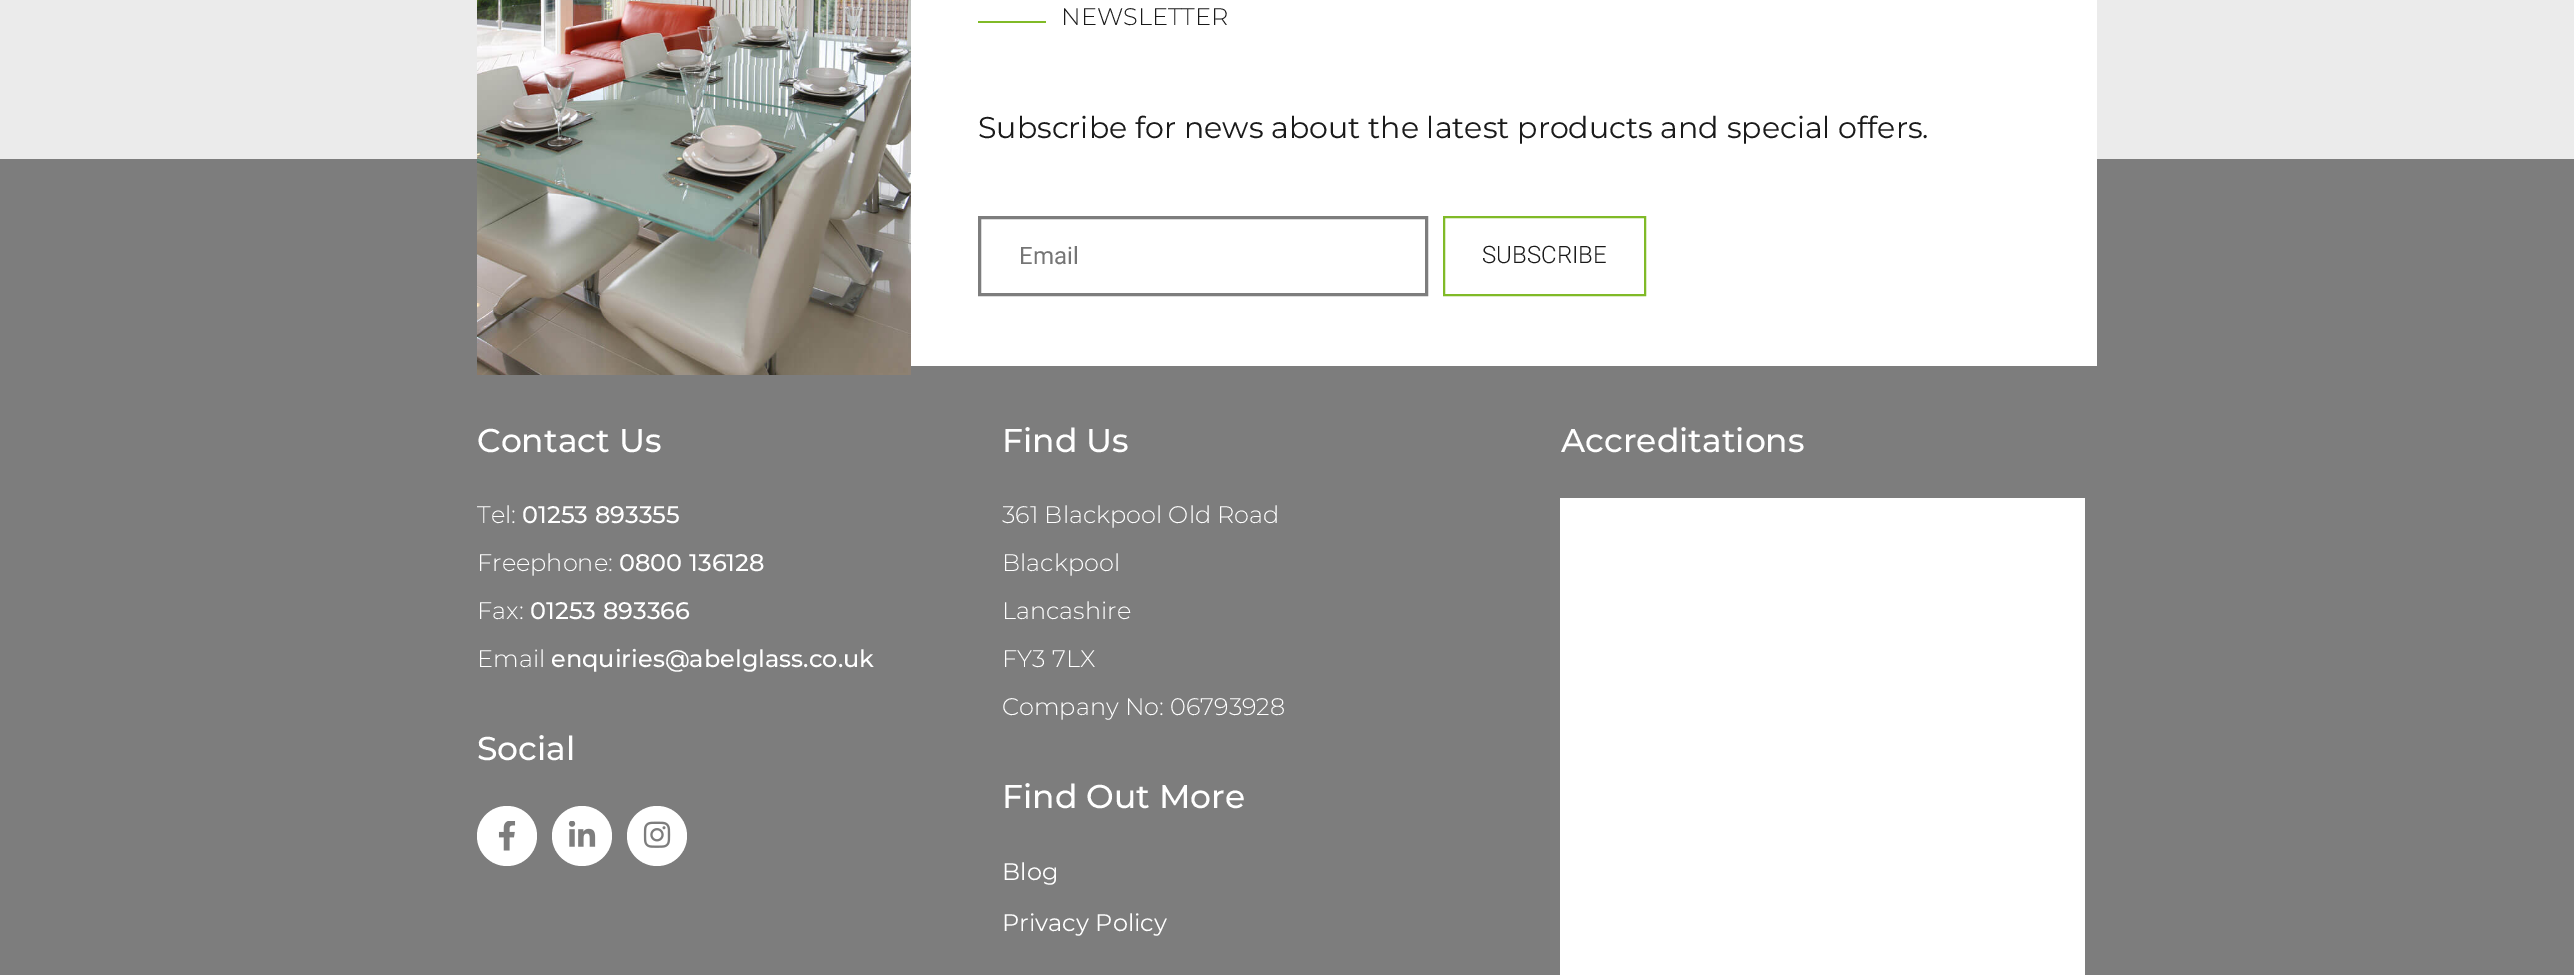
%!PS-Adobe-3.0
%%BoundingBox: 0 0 2574 975
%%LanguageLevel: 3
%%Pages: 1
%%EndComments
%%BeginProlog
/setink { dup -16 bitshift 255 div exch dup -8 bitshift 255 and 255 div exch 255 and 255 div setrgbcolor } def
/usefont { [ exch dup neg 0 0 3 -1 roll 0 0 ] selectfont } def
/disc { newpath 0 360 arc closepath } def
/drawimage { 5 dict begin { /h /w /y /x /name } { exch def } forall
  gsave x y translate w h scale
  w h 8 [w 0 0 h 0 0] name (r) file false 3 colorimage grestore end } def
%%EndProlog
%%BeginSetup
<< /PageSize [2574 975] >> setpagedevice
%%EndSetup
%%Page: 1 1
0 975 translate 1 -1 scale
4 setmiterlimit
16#EBEBEB setink
0 0 2574 975 rectfill
16#7D7D7D setink
0 159 2574 816 rectfill
(img1.raw) 477 0 434 375 drawimage
16#FFFFFF setink
911 0 1186 366 rectfill
16#80BA27 setink
978 21 68 2 rectfill
/Montserrat-Light 24 usefont
16#1A1A1A setink
1061 25 moveto (NEWSLETTER) show
/Montserrat-Regular 30 usefont
978 138 moveto (Subscribe for news about the latest products and special offers.) show
16#7D7D7D setink
3 setlinewidth
979.5 217.5 447 77 rectstroke
/Roboto-Regular 24 usefont
16#757575 setink
1019 264 moveto (Email) show
16#80BA27 setink
2 setlinewidth
1444 217 201 78 rectstroke
/Roboto-Light 24 usefont
16#1A1A1A setink
1482 263 moveto (SUBSCRIBE) show
/Montserrat-Medium 33 usefont
16#FFFFFF setink
477 452 moveto (Contact Us) show
/Montserrat-Light 24 usefont
477 523 moveto (Tel:) show
/Montserrat-Medium 24 usefont
522 523 moveto (01253 893355) show
/Montserrat-Light 24 usefont
477 571 moveto (Freephone:) show
/Montserrat-Medium 24 usefont
619 571 moveto (0800 136128) show
/Montserrat-Light 24 usefont
477 619 moveto (Fax:) show
/Montserrat-Medium 24 usefont
530 619 moveto (01253 893366) show
/Montserrat-Light 24 usefont
477 667 moveto (Email) show
/Montserrat-Medium 24 usefont
551 667 moveto (enquiries@abelglass.co.uk) show
/Montserrat-Medium 33 usefont
477 760 moveto (Social) show
507 836 30 disc fill
(img2.raw) 498 821 18 30 drawimage
582 836 30 disc fill
(img3.raw) 568 821 28 26 drawimage
657 836 30 disc fill
(img4.raw) 643 821 28 27 drawimage
1002 452 moveto (Find Us) show
/Montserrat-Light 24 usefont
[
    [(361 Blackpool Old Road) 1002 523]
    [(Blackpool) 1002 571]
    [(Lancashire) 1002 619]
    [(FY3 7LX) 1002 667]
    [(Company No: 06793928) 1002 715]
] { aload pop moveto show } forall
/Montserrat-Medium 33 usefont
1002 808 moveto (Find Out More) show
/Montserrat-Regular 24 usefont
1002 880 moveto (Blog) show
1002 931 moveto (Privacy Policy) show
/Montserrat-Medium 33 usefont
1561 452 moveto (Accreditations) show
1560 498 525 477 rectfill
showpage
%%EOF
